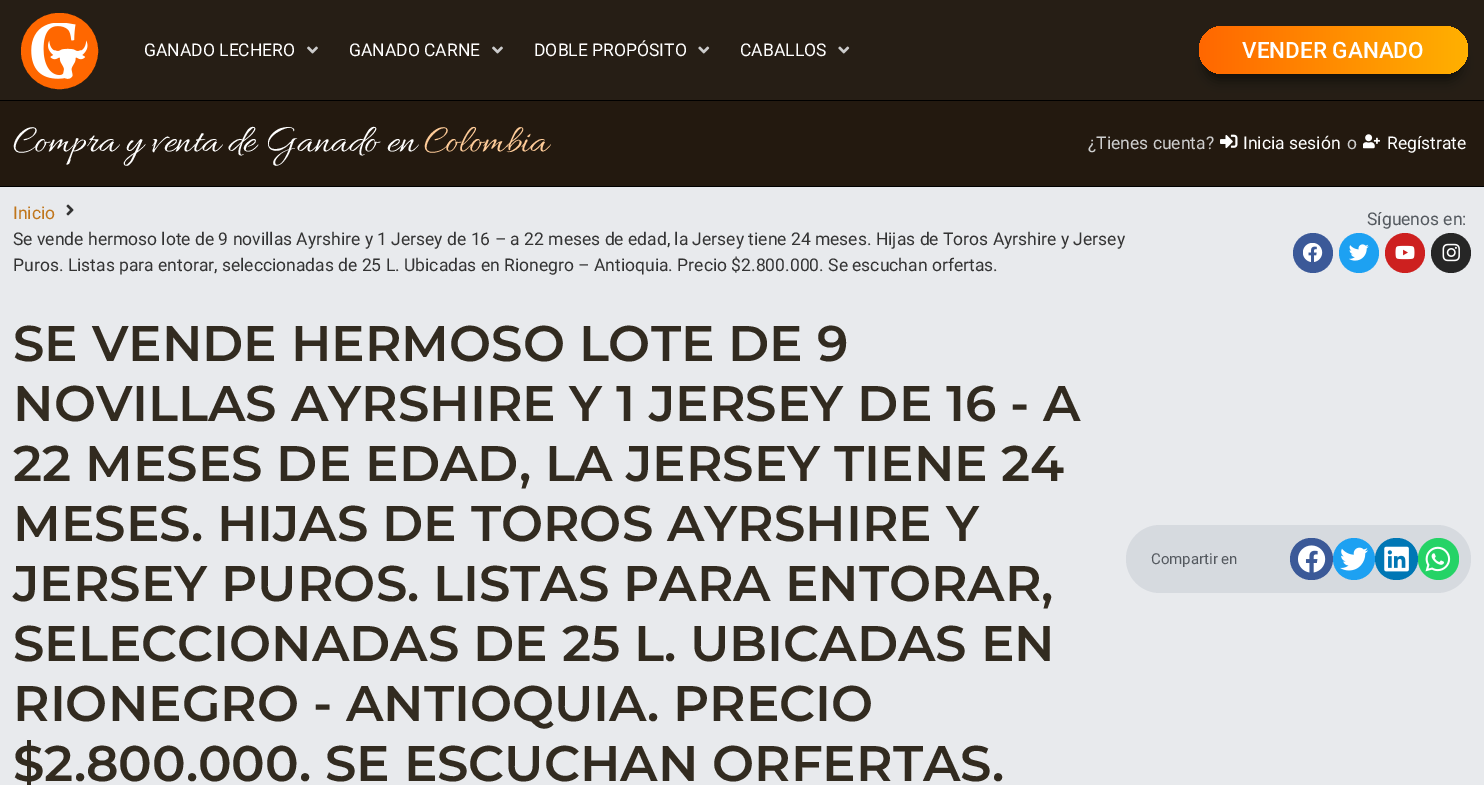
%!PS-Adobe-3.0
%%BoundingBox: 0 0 1484 785
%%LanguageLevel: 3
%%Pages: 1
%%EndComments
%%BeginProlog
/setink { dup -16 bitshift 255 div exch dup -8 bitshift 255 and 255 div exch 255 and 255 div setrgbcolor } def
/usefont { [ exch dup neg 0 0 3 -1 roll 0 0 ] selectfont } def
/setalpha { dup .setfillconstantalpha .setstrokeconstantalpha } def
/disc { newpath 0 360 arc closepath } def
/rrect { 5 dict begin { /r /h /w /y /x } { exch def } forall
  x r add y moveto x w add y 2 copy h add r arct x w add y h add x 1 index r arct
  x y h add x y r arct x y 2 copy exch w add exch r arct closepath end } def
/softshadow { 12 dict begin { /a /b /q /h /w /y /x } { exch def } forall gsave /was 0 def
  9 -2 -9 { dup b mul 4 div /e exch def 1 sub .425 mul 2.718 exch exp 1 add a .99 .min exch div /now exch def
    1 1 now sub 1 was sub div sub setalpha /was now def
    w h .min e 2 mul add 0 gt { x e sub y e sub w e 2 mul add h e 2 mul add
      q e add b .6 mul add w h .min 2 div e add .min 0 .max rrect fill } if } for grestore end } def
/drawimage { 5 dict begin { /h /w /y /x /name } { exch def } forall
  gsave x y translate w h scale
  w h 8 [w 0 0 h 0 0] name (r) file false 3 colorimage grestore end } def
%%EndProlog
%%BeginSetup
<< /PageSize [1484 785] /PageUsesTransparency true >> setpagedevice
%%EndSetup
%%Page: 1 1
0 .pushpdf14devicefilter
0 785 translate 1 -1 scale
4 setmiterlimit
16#E8EAED setink
0 0 1484 785 rectfill
16#261E15 setink
0 0 1484 100 rectfill
16#FF6700 setink
23 15 73 72 36 rrect gsave fill grestore
4 setlinewidth
stroke
(img1.raw) 31 23 57 56 drawimage
/Roboto-Regular 17.5 usefont
16#FFFFFF setink
144 56 moveto (GANADO LECHERO) show
(img2.raw) 307 46 11 8 drawimage
349 56 moveto (GANADO CARNE) show
(img2.raw) 492 46 11 8 drawimage
534 56 moveto (DOBLE PROPÓSITO) show
(img3.raw) 698 46 12 8 drawimage
740 56 moveto (CABALLOS) show
(img3.raw) 838 46 12 8 drawimage
16#000000 setink
1205 45 256 35 17.5 6 0.5 softshadow
gsave 1199 26 269 48 24 rrect clip newpath
<< /ShadingType 2 /ColorSpace /DeviceRGB /Coords [1199 50 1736 50] /Extend [true true] /Function << /FunctionType 3 /Domain [0 1] /Functions [<< /FunctionType 2 /Domain [0 1] /C0 [1 0.404 0] /C1 [1 0.69 0] /N 1 >> << /FunctionType 2 /Domain [0 1] /C0 [1 0.69 0] /C1 [1 0.404 0] /N 1 >>] /Bounds [0.5] /Encode [0 1 0 1] >> >> shfill grestore
/Roboto-Medium 22.5 usefont
16#FFFFFF setink
1242 58 moveto (VENDER GANADO) show
[
    [0 101 1484 85 16#23190F]
    [0 100 1484 1 16#000000]
    [0 186 1484 1 16#000000]
] { aload pop setink rectfill } forall
/Allura-Regular 40 usefont
16#FFFFFF setink
13 151 moveto (Compra y venta de Ganado en) show
16#FFCC99 setink
424 151 moveto (Colombia) show
/Roboto-Regular 17.5 usefont
16#CECECE setink
1088 149 moveto (¿Tienes cuenta?) show
(img4.raw) 1220 134 18 15 drawimage
16#FFFFFF setink
1243 149 moveto (Inicia sesión) show
16#CECECE setink
1347 149 moveto (o) show
(img5.raw) 1363 134 17 15 drawimage
16#FFFFFF setink
1387 149 moveto (Regístrate) show
16#C0761C setink
13 219 moveto (Inicio) show
(img6.raw) 66 204 8 12 drawimage
16#333333 setink
13 245 moveto (Se vende hermoso lote de 9 novillas Ayrshire y 1 Jersey de 16 – a 22 meses de edad, la Jersey tiene 24 meses. Hijas de Toros Ayrshire y Jersey) show
13 271 moveto (Puros. Listas para entorar, seleccionadas de 25 L. Ubicadas en Rionegro – Antioquia. Precio $2.800.000. Se escuchan orfertas.) show
16#54595F setink
1367 225 moveto (Síguenos en:) show
16#3B5998 setink
1313 253 20 disc fill
(img7.raw) 1303 243 20 19 drawimage
16#1DA1F2 setink
1359 253 20 disc fill
(img8.raw) 1349 244 20 17 drawimage
16#CD201F setink
1405 253 20 disc fill
(img9.raw) 1395 245 20 15 drawimage
16#262626 setink
1451 253 20 disc fill
(img10.raw) 1442 243 18 19 drawimage
/Montserrat-SemiBold 50 usefont
16#322B20 setink
[
    [(SE VENDE HERMOSO LOTE DE 9) 13 361]
    [(NOVILLAS AYRSHIRE Y 1 JERSEY DE 16 - A) 13 421]
    [(22 MESES DE EDAD, LA JERSEY TIENE 24) 13 481]
    [(MESES. HIJAS DE TOROS AYRSHIRE Y) 13 541]
    [(JERSEY PUROS. LISTAS PARA ENTORAR,) 13 601]
    [(SELECCIONADAS DE 25 L. UBICADAS EN) 13 661]
    [(RIONEGRO - ANTIOQUIA. PRECIO) 13 721]
    [($2.800.000. SE ESCUCHAN ORFERTAS.) 13 781]
] { aload pop moveto show } forall
16#D6DADF setink
1126 525 345 68 34 rrect fill
/Roboto-Regular 15 usefont
16#54595F setink
1151 564 moveto (Compartir en) show
16#3B5998 setink
1290 538 43 42 21 rrect fill
(img11.raw) 1298 545 28 28 drawimage
16#1DA1F2 setink
1354 559 21 disc fill
(img12.raw) 1340 547 28 24 drawimage
16#0077B5 setink
1375 538 43 42 21 rrect fill
(img13.raw) 1384 546 25 26 drawimage
16#25D366 setink
1418 538 41 42 20.5 rrect fill
(img14.raw) 1425 546 26 26 drawimage
.poppdf14devicefilter showpage
%%EOF
